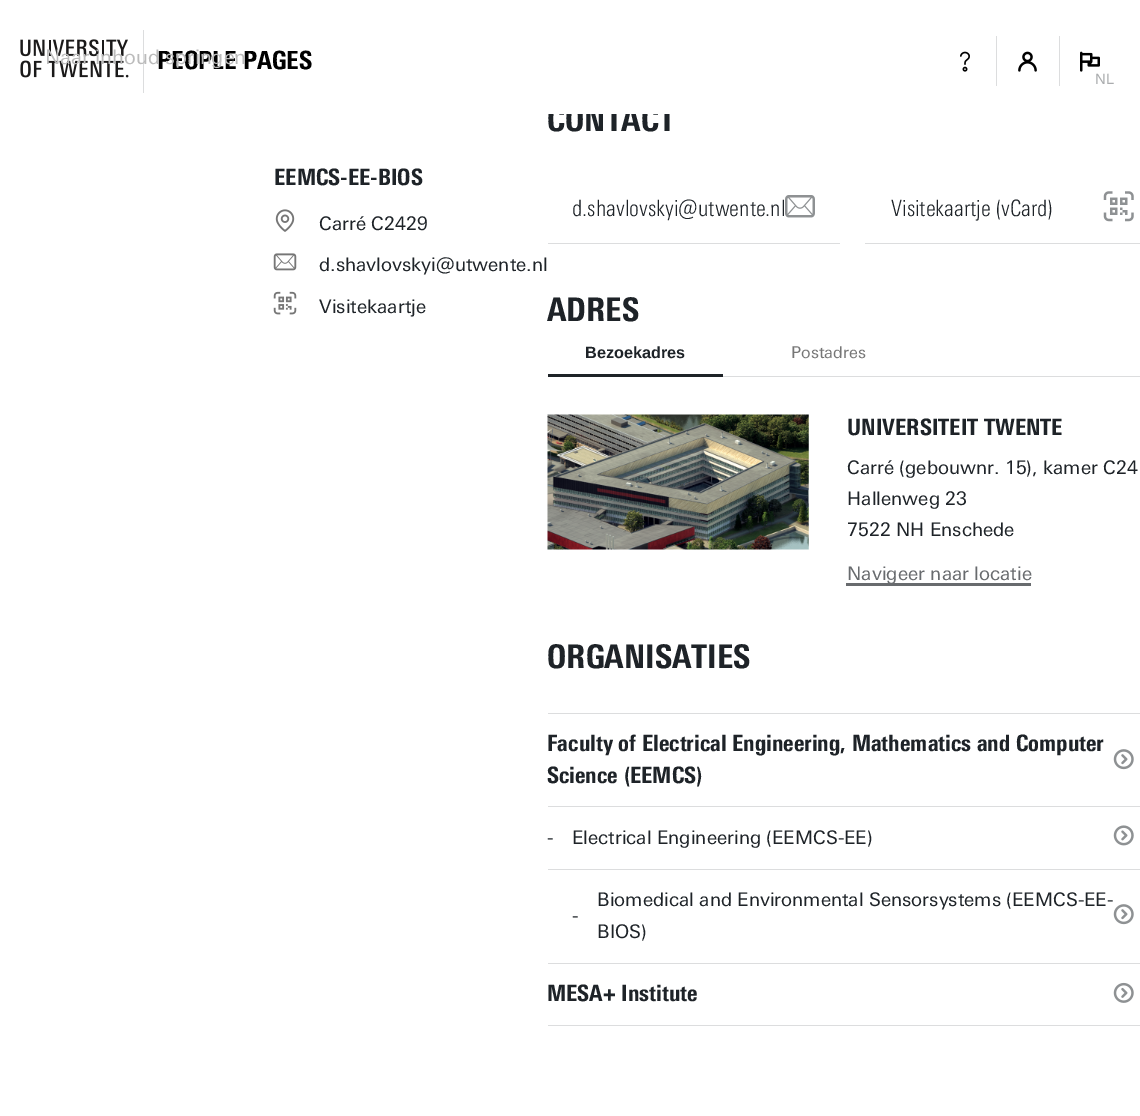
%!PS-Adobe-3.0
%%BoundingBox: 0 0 1140 1116
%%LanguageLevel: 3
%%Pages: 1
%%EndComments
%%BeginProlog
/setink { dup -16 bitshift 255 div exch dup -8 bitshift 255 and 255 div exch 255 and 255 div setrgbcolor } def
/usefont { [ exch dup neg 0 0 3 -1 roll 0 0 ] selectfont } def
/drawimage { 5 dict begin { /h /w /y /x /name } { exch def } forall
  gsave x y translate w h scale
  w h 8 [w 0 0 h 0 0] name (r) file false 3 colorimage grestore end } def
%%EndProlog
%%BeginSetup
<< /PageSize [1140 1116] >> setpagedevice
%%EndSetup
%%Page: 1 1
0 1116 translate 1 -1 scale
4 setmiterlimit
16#FFFFFF setink
0 0 1140 1116 rectfill
(img1.raw) 20 39 109 39 drawimage
16#DCDDDE setink
143 30 1 63 rectfill
/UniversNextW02-Black 25 usefont
16#000000 setink
157 69 moveto (PEOPLE PAGES) show
/UniversNextW02-Regular 20 usefont
16#BBBBBB setink
45 64 moveto (Naar inhoud springen) show
(img2.raw) 960 51 10 21 drawimage
16#DCDDDE setink
996 36 1 50 rectfill
(img3.raw) 1018 51 19 21 drawimage
1059 36 1 50 rectfill
(img4.raw) 1080 51 20 21 drawimage
/LiberationSans-Regular 15 usefont
16#AAACAE setink
1095 84 moveto (NL) show
/UniversNextW02-Black 22.5 usefont
16#1E2328 setink
274 185 moveto (EEMCS-EE-BIOS) show
(img5.raw) 275 209 20 23 drawimage
/UniversNextW02-Regular 18.75 usefont
319 230 moveto (Carré C2429) show
(img6.raw) 273 253 24 18 drawimage
319 271 moveto (d.shavlovskyi@utwente.nl) show
(img7.raw) 273 291 24 24 drawimage
319 313 moveto (Visitekaartje) show
/UniversNextW02-Black 32.5 usefont
547 131 moveto (CONTACT) show
16#DCDDDE setink
548 243 292 1 rectfill
/UniversNextW02-Light 22.5 usefont
16#1E2328 setink
572 216 moveto (d.shavlovskyi@utwente.nl) show
(img8.raw) 785 195 30 23 drawimage
16#DCDDDE setink
865 243 275 1 rectfill
16#1E2328 setink
891 216 moveto (Visitekaartje \(vCard\)) show
(img9.raw) 1103 191 31 31 drawimage
/UniversNextW02-Black 32.5 usefont
547 321 moveto (ADRES) show
16#DCDDDE setink
723 376 417 1 rectfill
/LiberationSans-Bold 16.25 usefont
16#1E2328 setink
585 358 moveto (Bezoekadres) show
548 374 175 3 rectfill
/UniversNextW02-Regular 16.25 usefont
16#767676 setink
791 358 moveto (Postadres) show
(img10.raw) 547 414 262 136 drawimage
/UniversNextW02-Black 22.5 usefont
16#1E2328 setink
847 435 moveto (UNIVERSITEIT TWENTE) show
/UniversNextW02-Regular 18.75 usefont
[
    [(Carré \(gebouwnr. 15\), kamer C24) 847 474]
    [(Hallenweg 23) 847 505]
    [(7522 NH Enschede) 847 536]
] { aload pop moveto show } forall
16#686B6E setink
846 583 185 3 rectfill
847 580 moveto (Navigeer naar locatie) show
/UniversNextW02-Black 32.5 usefont
16#1E2328 setink
547 668 moveto (ORGANISATIES) show
16#DCDDDE setink
548 713 592 1 rectfill
548 806 592 1 rectfill
/UniversNextW02-Black 22.5 usefont
16#1E2328 setink
547 751 moveto (Faculty of Electrical Engineering, Mathematics and Computer) show
547 783 moveto (Science \(EEMCS\)) show
(img11.raw) 1113 749 21 21 drawimage
16#DCDDDE setink
548 869 592 1 rectfill
/UniversNextW02-Regular 18.75 usefont
16#1E2328 setink
547 844 moveto (-) show
572 844 moveto (Electrical Engineering \(EEMCS-EE\)) show
(img12.raw) 1113 825 21 21 drawimage
16#DCDDDE setink
548 963 592 1 rectfill
16#1E2328 setink
[
    [(-) 572 922]
    [(Biomedical and Environmental Sensorsystems \(EEMCS-EE-) 597 906]
    [(BIOS\)) 597 938]
] { aload pop moveto show } forall
(img11.raw) 1113 904 21 21 drawimage
16#DCDDDE setink
548 1025 592 1 rectfill
/UniversNextW02-Black 22.5 usefont
16#1E2328 setink
547 1001 moveto (MESA+ Institute) show
(img13.raw) 1113 982 21 21 drawimage
16#FFFFFF setink
548 107 127 7 rectfill
showpage
%%EOF
